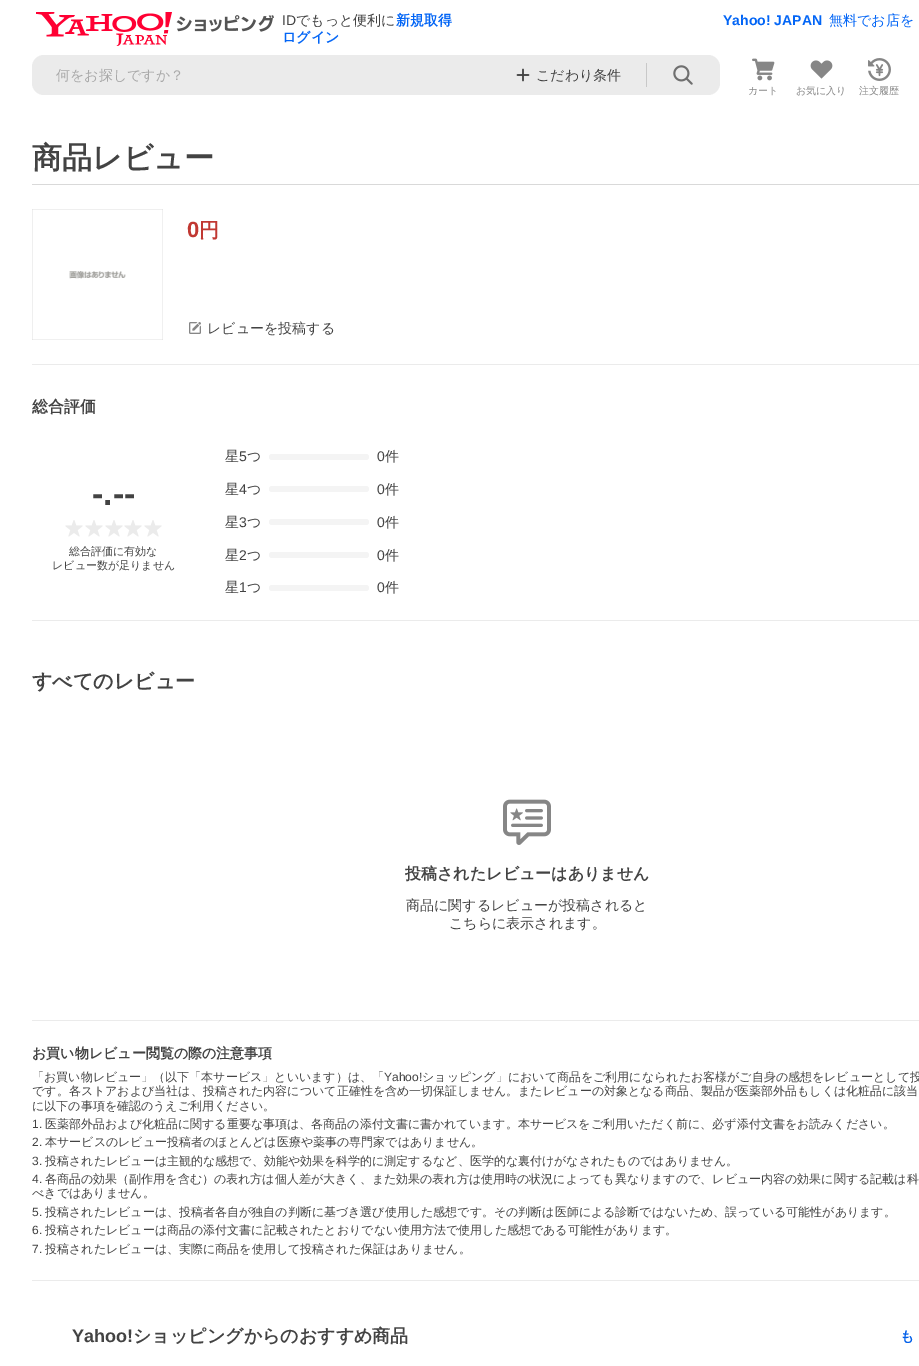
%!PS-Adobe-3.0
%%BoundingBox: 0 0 919 1366
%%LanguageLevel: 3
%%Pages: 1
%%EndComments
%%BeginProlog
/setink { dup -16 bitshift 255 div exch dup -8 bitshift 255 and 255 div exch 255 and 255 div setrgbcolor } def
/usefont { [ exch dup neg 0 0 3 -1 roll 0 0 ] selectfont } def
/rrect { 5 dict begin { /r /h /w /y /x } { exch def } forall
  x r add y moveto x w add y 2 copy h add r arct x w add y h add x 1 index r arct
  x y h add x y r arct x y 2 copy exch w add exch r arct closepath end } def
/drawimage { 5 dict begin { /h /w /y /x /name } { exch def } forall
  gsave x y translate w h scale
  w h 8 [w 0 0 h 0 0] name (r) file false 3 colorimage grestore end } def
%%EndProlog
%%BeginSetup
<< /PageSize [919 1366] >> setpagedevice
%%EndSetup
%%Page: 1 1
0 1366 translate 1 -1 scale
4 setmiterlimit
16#FFFFFF setink
0 0 919 1366 rectfill
(img1.raw) 36 12 238 34 drawimage
/LiberationSans-Regular 14 usefont
16#434343 setink
282 25 moveto (ID) show
/WenQuanYiZenHei-Medium 14 usefont
296 25 moveto (でもっと便利に) show
/WenQuanYiZenHei-Bold 14 usefont
16#0265F6 setink
396 25 moveto (新規取得) show
282 42 moveto (ログイン) show
/LiberationSans-Bold 14 usefont
723 25 moveto (Yahoo! JAPAN) show
/WenQuanYiZenHei-Medium 14 usefont
829 25 moveto (無料でお店を) show
16#EBEBEB setink
32 55 688 40 12 rrect fill
16#A9A9A9 setink
56 80 moveto (何をお探しですか？) show
(img2.raw) 516 68 14 14 drawimage
16#434343 setink
536 80 moveto (こだわり条件) show
16#C8C8C8 setink
646 63 1 24 rectfill
(img3.raw) 673 65 20 20 drawimage
(img4.raw) 752 58 23 23 drawimage
/WenQuanYiZenHei-Medium 10 usefont
16#868686 setink
748 94 moveto (カート) show
(img5.raw) 810 60 23 19 drawimage
796 94 moveto (お気に入り) show
(img6.raw) 868 58 23 23 drawimage
859 94 moveto (注文履歴) show
16#D9D9D9 setink
32 184 887 1 rectfill
/WenQuanYiZenHei-Bold 30 usefont
16#434343 setink
32 168 moveto (商品レビュー) show
(img7.raw) 32 209 131 131 drawimage
/LiberationSans-Bold 22 usefont
16#C13832 setink
187 237 moveto (0) show
/WenQuanYiZenHei-Bold 20 usefont
199 237 moveto (円) show
(img8.raw) 189 322 12 12 drawimage
/WenQuanYiZenHei-Medium 14 usefont
16#434343 setink
207 333 moveto (レビューを投稿する) show
16#EBEBEB setink
32 364 887 1 rectfill
/WenQuanYiZenHei-Bold 16 usefont
16#434343 setink
32 412 moveto (総合評価) show
/LiberationSans-Bold 34 usefont
92 505 moveto (-.--) show
(img9.raw) 65 520 18 17 drawimage
(img9.raw) 85 520 18 17 drawimage
(img9.raw) 105 520 18 17 drawimage
(img9.raw) 124 520 18 17 drawimage
(img9.raw) 144 520 18 17 drawimage
/WenQuanYiZenHei-Medium 11 usefont
69 555 moveto (総合評価に有効な) show
52 569 moveto (レビュー数が足りません) show
/WenQuanYiZenHei-Medium 14 usefont
225 461 moveto (星) show
/LiberationSans-Regular 14 usefont
239 461 moveto (5) show
/WenQuanYiZenHei-Medium 14 usefont
247 461 moveto (つ) show
16#F4F4F4 setink
269 454 100 6 3 rrect fill
/LiberationSans-Regular 14 usefont
16#434343 setink
377 461 moveto (0) show
/WenQuanYiZenHei-Medium 14 usefont
385 461 moveto (件) show
225 494 moveto (星) show
/LiberationSans-Regular 14 usefont
239 494 moveto (4) show
/WenQuanYiZenHei-Medium 14 usefont
247 494 moveto (つ) show
16#F4F4F4 setink
269 486 100 6 3 rrect fill
/LiberationSans-Regular 14 usefont
16#434343 setink
377 494 moveto (0) show
/WenQuanYiZenHei-Medium 14 usefont
385 494 moveto (件) show
225 527 moveto (星) show
/LiberationSans-Regular 14 usefont
239 527 moveto (3) show
/WenQuanYiZenHei-Medium 14 usefont
247 527 moveto (つ) show
16#F4F4F4 setink
269 519 100 6 3 rrect fill
/LiberationSans-Regular 14 usefont
16#434343 setink
377 527 moveto (0) show
/WenQuanYiZenHei-Medium 14 usefont
385 527 moveto (件) show
225 560 moveto (星) show
/LiberationSans-Regular 14 usefont
239 560 moveto (2) show
/WenQuanYiZenHei-Medium 14 usefont
247 560 moveto (つ) show
16#F4F4F4 setink
269 552 100 6 3 rrect fill
/LiberationSans-Regular 14 usefont
16#434343 setink
377 560 moveto (0) show
/WenQuanYiZenHei-Medium 14 usefont
385 560 moveto (件) show
225 592 moveto (星) show
/LiberationSans-Regular 14 usefont
239 592 moveto (1) show
/WenQuanYiZenHei-Medium 14 usefont
247 592 moveto (つ) show
16#F4F4F4 setink
269 585 100 6 3 rrect fill
/LiberationSans-Regular 14 usefont
16#434343 setink
377 592 moveto (0) show
/WenQuanYiZenHei-Medium 14 usefont
385 592 moveto (件) show
16#EBEBEB setink
32 620 887 1 rectfill
/WenQuanYiZenHei-Bold 20 usefont
16#434343 setink
32 688 moveto (すべてのレビュー) show
(img10.raw) 503 799 48 46 drawimage
/WenQuanYiZenHei-Bold 16 usefont
405 879 moveto (投稿されたレビューはありません) show
/WenQuanYiZenHei-Medium 14 usefont
406 910 moveto (商品に関するレビューが投稿されると) show
449 928 moveto (こちらに表示されます。) show
16#EBEBEB setink
32 1020 887 1 rectfill
/WenQuanYiZenHei-Bold 14 usefont
16#434343 setink
32 1058 moveto (お買い物レビュー閲覧の際の注意事項) show
/WenQuanYiZenHei-Medium 12 usefont
32 1081 moveto (「お買い物レビュー」（以下「本サービス」といいます）は、「) show
/LiberationSans-Regular 12 usefont
384 1081 moveto (Yahoo!) show
/WenQuanYiZenHei-Medium 12 usefont
[
    [(ショッピング」において商品をご利用になられたお客様がご自身の感想をレビューとして投) 422 1081]
    [(です。各ストアおよび当社は、投稿された内容について正確性を含め一切保証しません。またレビューの対象となる商品、製品が医薬部外品もしくは化粧品に該当) 32 1095]
    [(に以下の事項を確認のうえご利用ください。) 32 1110]
] { aload pop moveto show } forall
/LiberationSans-Regular 12 usefont
32 1128 moveto (1.) show
/WenQuanYiZenHei-Medium 12 usefont
45 1128 moveto (医薬部外品および化粧品に関する重要な事項は、各商品の添付文書に書かれています。本サービスをご利用いただく前に、必ず添付文書をお読みください。) show
/LiberationSans-Regular 12 usefont
32 1146 moveto (2.) show
/WenQuanYiZenHei-Medium 12 usefont
45 1146 moveto (本サービスのレビュー投稿者のほとんどは医療や薬事の専門家ではありません。) show
/LiberationSans-Regular 12 usefont
32 1165 moveto (3.) show
/WenQuanYiZenHei-Medium 12 usefont
45 1165 moveto (投稿されたレビューは主観的な感想で、効能や効果を科学的に測定するなど、医学的な裏付けがなされたものではありません。) show
/LiberationSans-Regular 12 usefont
32 1183 moveto (4.) show
/WenQuanYiZenHei-Medium 12 usefont
45 1183 moveto (各商品の効果（副作用を含む）の表れ方は個人差が大きく、また効果の表れ方は使用時の状況によっても異なりますので、レビュー内容の効果に関する記載は科) show
32 1197 moveto (べきではありません。) show
/LiberationSans-Regular 12 usefont
32 1216 moveto (5.) show
/WenQuanYiZenHei-Medium 12 usefont
45 1216 moveto (投稿されたレビューは、投稿者各自が独自の判断に基づき選び使用した感想です。その判断は医師による診断ではないため、誤っている可能性があります。) show
/LiberationSans-Regular 12 usefont
32 1234 moveto (6.) show
/WenQuanYiZenHei-Medium 12 usefont
45 1234 moveto (投稿されたレビューは商品の添付文書に記載されたとおりでない使用方法で使用した感想である可能性があります。) show
/LiberationSans-Regular 12 usefont
32 1253 moveto (7.) show
/WenQuanYiZenHei-Medium 12 usefont
45 1253 moveto (投稿されたレビューは、実際に商品を使用して投稿された保証はありません。) show
16#EBEBEB setink
32 1280 887 1 rectfill
/LiberationSans-Bold 18 usefont
16#434343 setink
72 1342 moveto (Yahoo!) show
/WenQuanYiZenHei-Bold 18 usefont
133 1342 moveto (ショッピングからのおすすめ商品) show
/WenQuanYiZenHei-Bold 14 usefont
16#0260EA setink
900 1341 moveto (も) show
showpage
%%EOF
